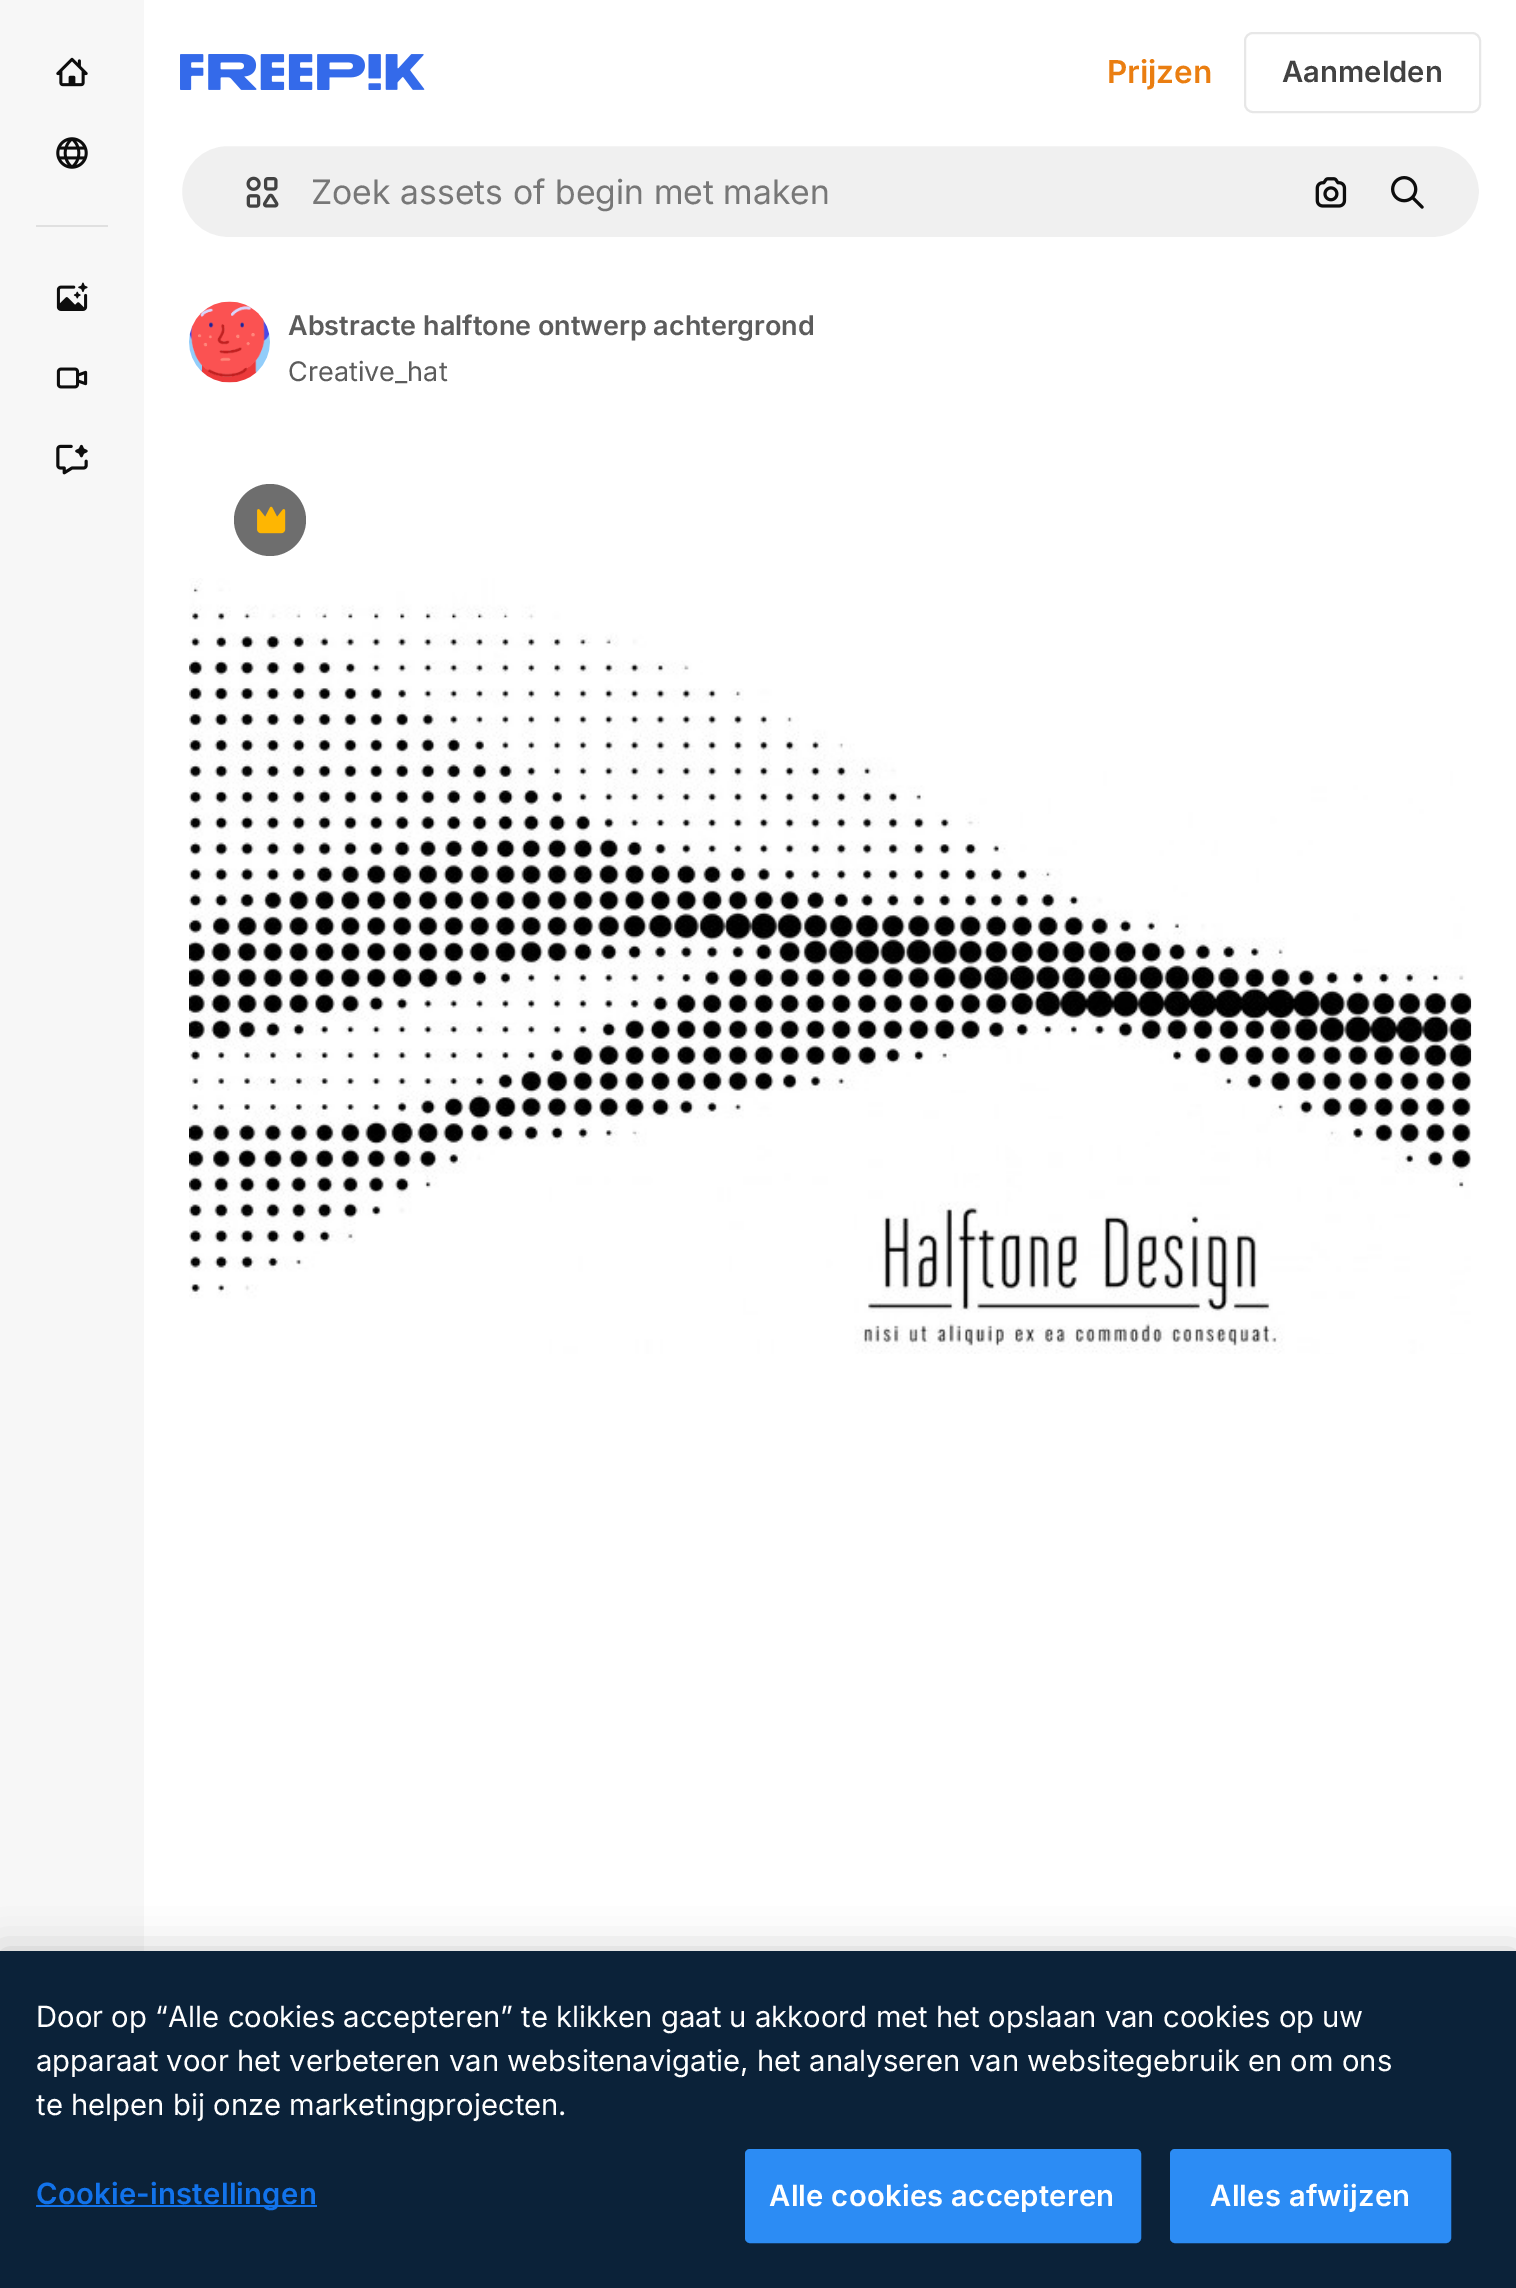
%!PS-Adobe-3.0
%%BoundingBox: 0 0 1516 2288
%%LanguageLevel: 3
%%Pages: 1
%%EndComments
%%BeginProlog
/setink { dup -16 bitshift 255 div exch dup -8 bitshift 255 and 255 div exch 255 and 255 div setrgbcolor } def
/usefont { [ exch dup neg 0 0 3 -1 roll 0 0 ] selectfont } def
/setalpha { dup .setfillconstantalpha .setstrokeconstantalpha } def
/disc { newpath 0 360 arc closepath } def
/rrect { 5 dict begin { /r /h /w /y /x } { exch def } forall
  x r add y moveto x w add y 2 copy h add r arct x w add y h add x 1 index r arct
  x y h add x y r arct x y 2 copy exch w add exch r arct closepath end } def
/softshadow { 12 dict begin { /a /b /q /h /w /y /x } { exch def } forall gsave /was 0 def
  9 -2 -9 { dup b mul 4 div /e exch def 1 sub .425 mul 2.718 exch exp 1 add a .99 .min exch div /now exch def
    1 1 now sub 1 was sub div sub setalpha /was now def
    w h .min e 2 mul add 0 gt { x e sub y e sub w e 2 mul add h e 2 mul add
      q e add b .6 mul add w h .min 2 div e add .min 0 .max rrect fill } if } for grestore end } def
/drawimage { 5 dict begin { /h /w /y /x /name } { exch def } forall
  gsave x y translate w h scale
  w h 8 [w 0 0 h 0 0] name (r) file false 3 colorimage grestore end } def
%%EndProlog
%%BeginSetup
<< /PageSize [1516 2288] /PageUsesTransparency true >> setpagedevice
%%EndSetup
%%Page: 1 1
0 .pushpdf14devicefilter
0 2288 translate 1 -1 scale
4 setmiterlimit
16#FFFFFF setink
0 0 1516 2288 rectfill
16#F7F7F7 setink
0 0 144 1951 rectfill
(img1.raw) 56 57 32 30 drawimage
(img2.raw) 56 137 32 32 drawimage
16#E0E0E0 setink
36 225 72 2 rectfill
(img3.raw) 56 282 32 29 drawimage
(img4.raw) 56 367 32 22 drawimage
(img5.raw) 56 444 32 31 drawimage
(img6.raw) 180 54 245 36 drawimage
/Inter-SemiBold 31.5 usefont
16#EA7E11 setink
1107 83 moveto (Prijzen) show
16#E7E7E7 setink
2 setlinewidth
1245 33 235 79 8 rrect stroke
/Inter-SemiBold 29.25 usefont
16#424242 setink
1282 82 moveto (Aanmelden) show
16#F0F0F0 setink
181 145 1299 93 46.5 rrect gsave fill grestore
16#FFFFFF setink
stroke
(img7.raw) 246 176 33 32 drawimage
/Inter-Regular 33.75 usefont
16#777777 setink
311 204 moveto (Zoek assets of begin met maken) show
(img8.raw) 1315 177 32 31 drawimage
(img9.raw) 1391 176 33 33 drawimage
(img10.raw) 189 301 81 82 drawimage
/Inter-SemiBold 27 usefont
16#5C5C5C setink
288 335 moveto (Abstracte halftone ontwerp achtergrond) show
/Inter-Regular 27 usefont
288 381 moveto (Creative_hat) show
16#6E6E6E setink
270 520 36 disc fill
(img11.raw) 257 506 29 28 drawimage
(img12.raw) 189 578 1283 776 drawimage
16#000000 setink
0 1951 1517 337 0 20 0.2 softshadow
16#0B2239 setink
0 1951 1516 337 rectfill
/Inter-Regular 29.25 usefont
16#FFFFFF setink
[
    [(Door op “Alle cookies accepteren” te klikken gaat u akkoord met het opslaan van cookies op uw) 36 2027]
    [(apparaat voor het verbeteren van websitenavigatie, het analyseren van websitegebruik en om ons) 36 2071]
    [(te helpen bij onze marketingprojecten.) 36 2115]
] { aload pop moveto show } forall
16#1273EB setink
36 2205 281 2 rectfill
/Inter-SemiBold 29.25 usefont
36 2204 moveto 0.25 0 (Cookie-instellingen) ashow
16#2C8CF4 setink
746 2150 394 92 4 rrect gsave fill grestore
stroke
16#FFFFFF setink
769 2206 moveto 0.25 0 (Alle cookies accepteren) ashow
16#2C8CF4 setink
1171 2150 279 92 4 rrect gsave fill grestore
stroke
16#FFFFFF setink
1210 2206 moveto 0.25 0 (Alles afwijzen) ashow
.poppdf14devicefilter showpage
%%EOF
